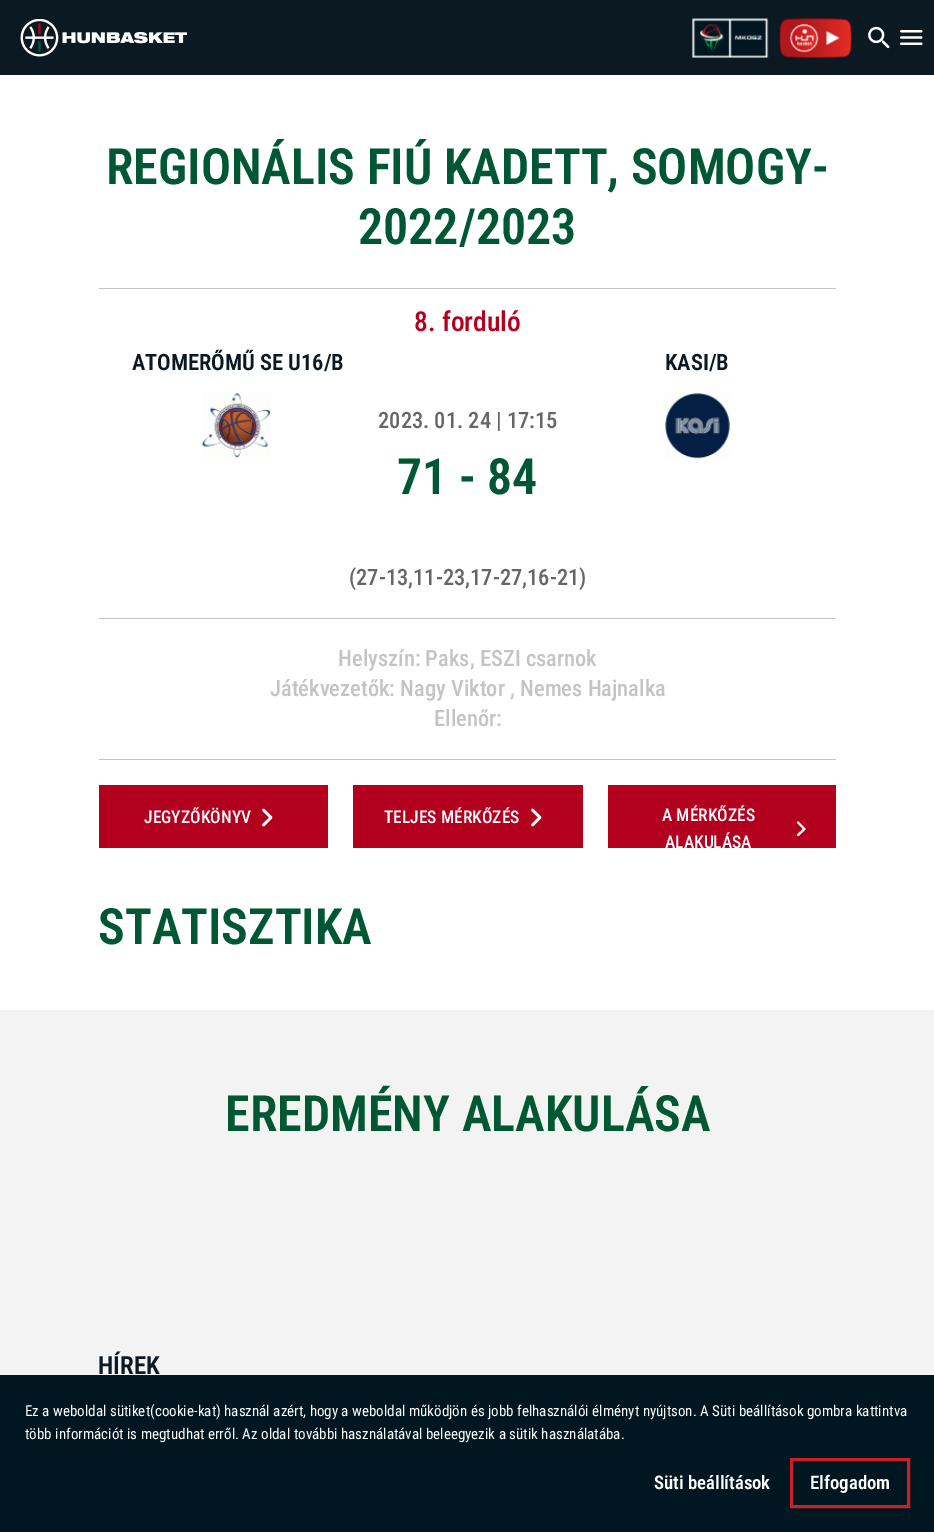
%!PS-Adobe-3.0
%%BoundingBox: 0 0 934 1532
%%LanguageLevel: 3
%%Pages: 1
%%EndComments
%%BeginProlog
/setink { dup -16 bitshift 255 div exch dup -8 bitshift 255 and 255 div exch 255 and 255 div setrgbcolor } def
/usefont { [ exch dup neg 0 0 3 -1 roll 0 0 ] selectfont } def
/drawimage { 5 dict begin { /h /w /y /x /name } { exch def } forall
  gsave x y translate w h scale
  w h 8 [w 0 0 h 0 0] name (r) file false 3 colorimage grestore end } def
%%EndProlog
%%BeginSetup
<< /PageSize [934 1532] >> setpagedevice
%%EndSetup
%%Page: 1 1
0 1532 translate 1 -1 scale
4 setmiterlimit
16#FFFFFF setink
0 0 934 1532 rectfill
16#0B1922 setink
0 0 934 75 rectfill
(img1.raw) 20 19 167 38 drawimage
(img2.raw) 692 18 77 40 drawimage
(img3.raw) 779 18 73 40 drawimage
(img4.raw) 868 26 22 23 drawimage
(img5.raw) 900 30 23 15 drawimage
/RobotoCondensed-SemiBold 50 usefont
16#005733 setink
106 184 moveto (REGIONÁLIS FIÚ KADETT, SOMOGY-) show
358 244 moveto (2022/2023) show
16#C4C4C4 setink
99 288 737 1 rectfill
/RobotoCondensed-Medium 27.5 usefont
16#B3001E setink
414 331 moveto (8. forduló) show
/RobotoCondensed-SemiBold 22.5 usefont
16#0B1922 setink
132 370 moveto (ATOMERŐMŰ SE U16/B) show
(img6.raw) 202 393 69 65 drawimage
665 370 moveto (KASI/B) show
(img7.raw) 665 393 65 66 drawimage
/RobotoCondensed-Medium 22.5 usefont
16#666666 setink
378 428 moveto (2023. 01. 24 | 17:15) show
/RobotoCondensed-SemiBold 50 usefont
16#005733 setink
397 494 moveto (71 - 84) show
/RobotoCondensed-Medium 22.5 usefont
16#666666 setink
349 585 moveto (\(27-13,11-23,17-27,16-21\)) show
16#C4C4C4 setink
99 618 737 1 rectfill
99 759 737 1 rectfill
[
    [(Helyszín: Paks, ESZI csarnok) 338 666]
    [(Játékvezetők: Nagy Viktor , Nemes Hajnalka) 270 696]
    [(Ellenőr:) 434 726]
] { aload pop moveto show } forall
16#B3001E setink
99 785 229 63 rectfill
/RobotoCondensed-Medium 17.5 usefont
16#FFFFFF setink
144 823 moveto (JEGYZŐKÖNYV) show
2.5 setlinewidth
1 setlinecap
1 setlinejoin
263.5 825 moveto 271 817.5 lineto 263.5 810 lineto stroke
16#B3001E setink
353 785 230 63 rectfill
16#FFFFFF setink
384 823 moveto (TELJES MÉRKŐZÉS) show
532.5 825 moveto 540 817.5 lineto 532.5 810 lineto stroke
16#B3001E setink
608 785 228 63 rectfill
16#FFFFFF setink
662 821 moveto (A MÉRKŐZÉS) show
2.1 setlinewidth
798 835 moveto 804.5 829 lineto 798 822.5 lineto stroke
665 848 moveto (ALAKULÁSA) show
/RobotoCondensed-SemiBold 50 usefont
16#005733 setink
98 944 moveto (STATISZTIKA) show
16#F3F3F3 setink
0 1010 934 365 rectfill
16#005733 setink
225 1131 moveto (EREDMÉNY ALAKULÁSA) show
/RobotoCondensed-SemiBold 25 usefont
16#0B1922 setink
98 1374 moveto (HÍREK) show
16#001722 setink
0 1375 934 157 rectfill
/RobotoCondensed-Regular 15 usefont
16#FFFFFF setink
25 1416 moveto (Ez a weboldal sütiket\(cookie-kat\) használ azért, hogy a weboldal működjön és jobb felhasználói élményt nyújtson. A Süti beállítások gombra kattintva) show
25 1439 moveto (több információt is megtudhat erről. Az oldal további használatával beleegyezik a sütik használatába.) show
/RobotoCondensed-SemiBold 18.75 usefont
654 1489 moveto (Süti beállítások) show
16#CA2128 setink
3 setlinewidth
0 setlinecap
0 setlinejoin
791.5 1459.5 117 47 rectstroke
16#FFFFFF setink
810 1489 moveto (Elfogadom) show
showpage
%%EOF
